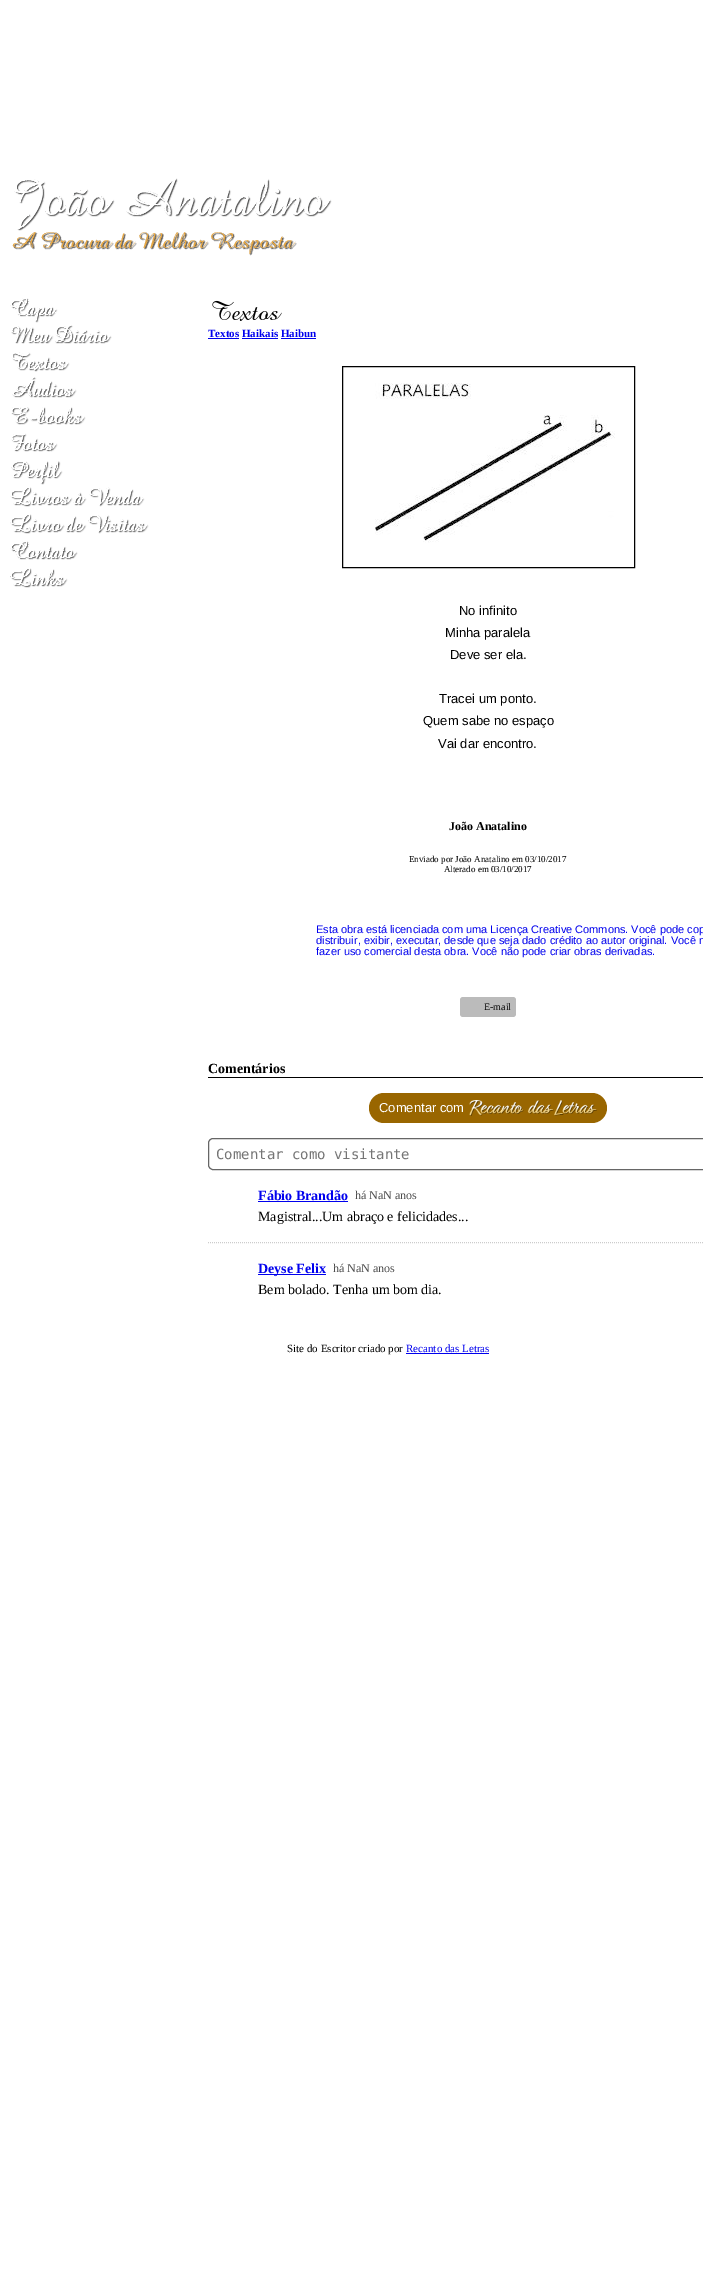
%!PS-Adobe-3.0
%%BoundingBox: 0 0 703 2276
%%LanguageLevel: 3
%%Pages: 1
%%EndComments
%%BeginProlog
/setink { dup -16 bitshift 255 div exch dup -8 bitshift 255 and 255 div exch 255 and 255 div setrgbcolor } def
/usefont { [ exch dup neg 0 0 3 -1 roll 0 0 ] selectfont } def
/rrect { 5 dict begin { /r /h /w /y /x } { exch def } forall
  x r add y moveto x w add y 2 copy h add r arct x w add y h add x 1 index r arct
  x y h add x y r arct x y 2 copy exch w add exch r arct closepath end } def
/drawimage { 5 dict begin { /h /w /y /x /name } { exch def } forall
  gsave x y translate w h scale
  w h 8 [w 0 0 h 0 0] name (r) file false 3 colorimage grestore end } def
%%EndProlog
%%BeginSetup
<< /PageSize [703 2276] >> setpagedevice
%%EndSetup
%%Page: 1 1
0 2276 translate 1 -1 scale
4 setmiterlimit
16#FFFFFF setink
0 0 703 2276 rectfill
(img1.raw) 14 178 318 53 drawimage
(img2.raw) 12 232 285 24 drawimage
(img3.raw) 10 298 48 25 drawimage
(img4.raw) 11 325 101 19 drawimage
(img5.raw) 12 352 58 20 drawimage
(img6.raw) 12 377 65 21 drawimage
(img7.raw) 11 407 75 18 drawimage
(img8.raw) 11 433 47 19 drawimage
(img9.raw) 11 461 52 24 drawimage
(img10.raw) 10 487 135 20 drawimage
(img11.raw) 10 514 139 20 drawimage
(img12.raw) 10 541 68 19 drawimage
(img13.raw) 10 568 58 20 drawimage
(img14.raw) 212 300 70 21 drawimage
/LiberationSerif-Bold 11 usefont
16#0000EE setink
208 337 moveto (Textos Haikais Haibun) show
[
    [208 338 31 1 16#0000EE]
    [242 338 36 1 16#0000EE]
    [281 338 35 1 16#0000EE]
] { aload pop setink rectfill } forall
16#000000 setink
342.5 366.5 292 201 rectstroke
(img15.raw) 375 383 240 160 drawimage
/LiberationSans-Regular 13 usefont
[
    [(No infinito) 459 615]
    [(Minha paralela) 445 637]
    [(Deve ser ela.) 450 659]
    [(Tracei um ponto.) 439 703]
    [(Quem sabe no espaço) 423 725]
    [(Vai dar encontro.) 438 748]
] { aload pop moveto show } forall
/LiberationSerif-Bold 12 usefont
449 830 moveto (João Anatalino) show
/LiberationSerif-Regular 9 usefont
409 862 moveto (Enviado por João Anatalino em 03/10/2017) show
444 872 moveto (Alterado em 03/10/2017) show
/LiberationSans-Regular 11 usefont
16#0000EE setink
[
    [(Esta obra está licenciada com uma Licença Creative Commons. Você pode cop) 316 933]
    [(distribuir, exibir, executar, desde que seja dado crédito ao autor original. Você n) 316 944]
    [(fazer uso comercial desta obra. Você não pode criar obras derivadas.) 316 955]
] { aload pop moveto show } forall
16#BBBBBB setink
460 997 56 20 3 rrect fill
/LiberationSerif-Regular 10 usefont
16#000000 setink
484 1010 moveto (E-mail) show
208 1077 495 1 rectfill
/LiberationSerif-Bold 14 usefont
208 1073 moveto (Comentários) show
16#996600 setink
369 1093 238 30 15 rrect fill
/LiberationSans-Regular 13 usefont
16#FFFFFF setink
379 1112 moveto (Comentar com) show
(img16.raw) 469 1100 128 16 drawimage
16#666666 setink
208.5 1138.5 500 31 4.5 rrect stroke
/DejaVuSansMono-Regular 14 usefont
16#757575 setink
216 1159 moveto (Comentar como visitante) show
16#CCCCCC setink
[1 1] 0 setdash
208 1242.5 moveto 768 1242.5 lineto stroke
/LiberationSerif-Bold 14 usefont
16#0000EE setink
258 1200 moveto (Fábio Brandão) show
258 1201 90 1 rectfill
/LiberationSerif-Regular 12 usefont
16#4D4D4D setink
355 1199 moveto (há NaN anos) show
/LiberationSerif-Regular 14 usefont
16#000000 setink
258 1221 moveto (Magistral...Um abraço e felicidades...) show
16#0000EE setink
258 1274 68 1 rectfill
/LiberationSerif-Bold 14 usefont
258 1273 moveto (Deyse Felix) show
/LiberationSerif-Regular 12 usefont
16#4D4D4D setink
333 1272 moveto (há NaN anos) show
/LiberationSerif-Regular 14 usefont
16#000000 setink
258 1294 moveto (Bem bolado. Tenha um bom dia.) show
/LiberationSerif-Regular 11 usefont
287 1352 moveto (Site do Escritor criado por) show
16#0000EE setink
406 1352 moveto (Recanto das Letras) show
406 1353 83 1 rectfill
showpage
%%EOF
